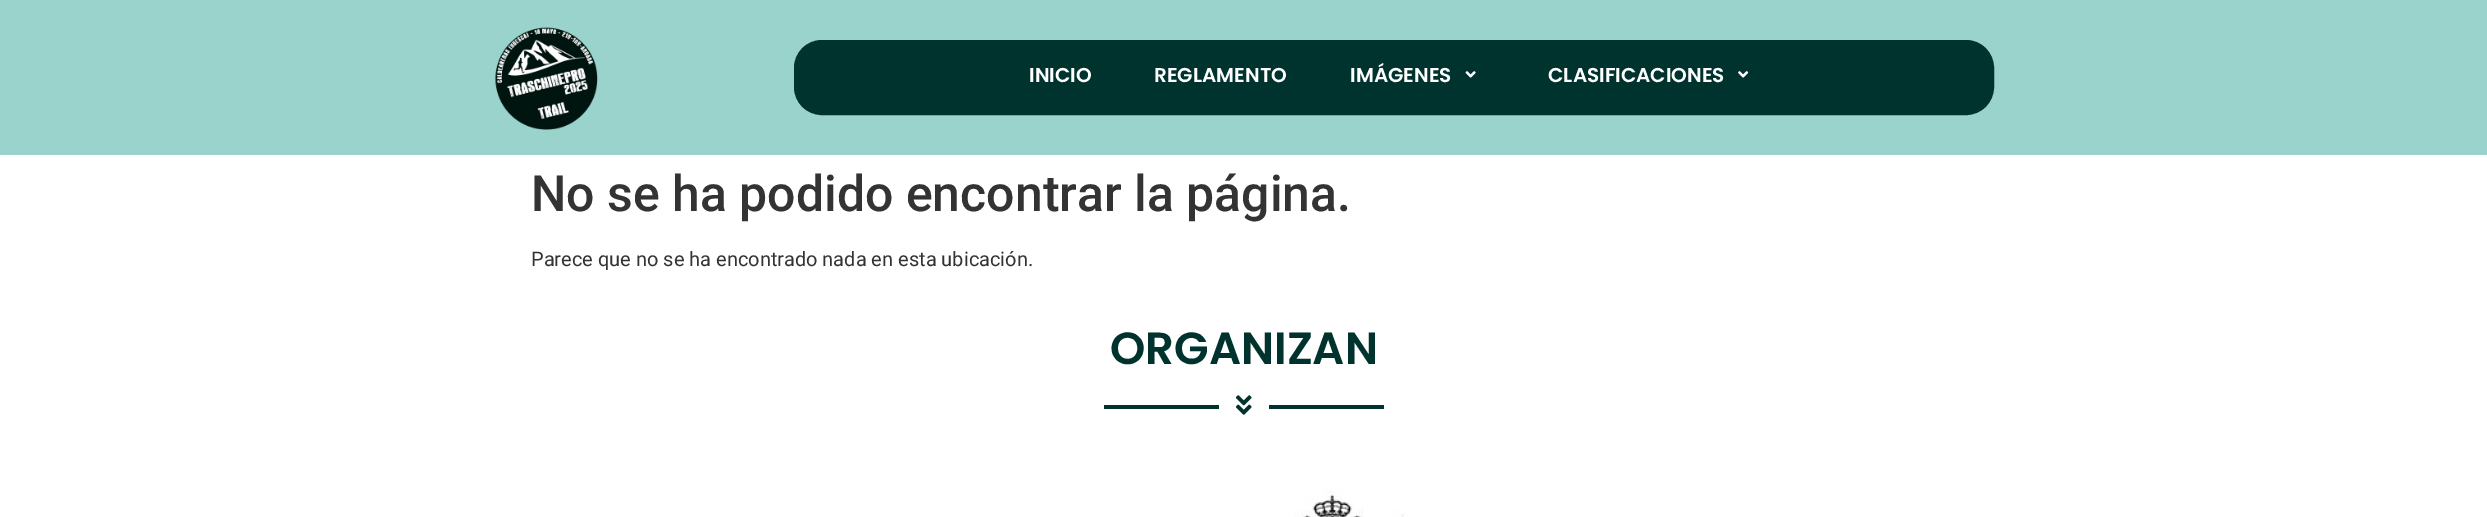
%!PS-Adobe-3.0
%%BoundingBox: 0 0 2487 517
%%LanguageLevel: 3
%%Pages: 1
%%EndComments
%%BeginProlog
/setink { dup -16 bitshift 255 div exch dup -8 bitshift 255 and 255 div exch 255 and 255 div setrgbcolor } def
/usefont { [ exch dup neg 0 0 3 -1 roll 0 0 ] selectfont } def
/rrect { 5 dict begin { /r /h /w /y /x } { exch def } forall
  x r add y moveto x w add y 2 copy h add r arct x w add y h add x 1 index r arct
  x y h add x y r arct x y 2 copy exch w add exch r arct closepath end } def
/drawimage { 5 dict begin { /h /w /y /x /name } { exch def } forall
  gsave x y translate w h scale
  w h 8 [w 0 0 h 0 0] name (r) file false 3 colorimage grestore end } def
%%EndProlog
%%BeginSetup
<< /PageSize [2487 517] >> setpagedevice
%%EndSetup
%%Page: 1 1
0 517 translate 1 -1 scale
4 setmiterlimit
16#FFFFFF setink
0 0 2487 517 rectfill
16#9AD3CC setink
0 0 2487 155 rectfill
(img1.raw) 495 27 103 103 drawimage
16#00332E setink
6 setlinewidth
797 43 1194 69 25 rrect stroke
[
    [1984 54 4 47 16#00332E]
    [800 54 4 47 16#00332E]
    [804 46 1180 63 16#00332E]
] { aload pop setink rectfill } forall
/Poppins-SemiBold 20 usefont
16#FFFFFF setink
[
    [(INICIO) 1029 82]
    [(REGLAMENTO) 1154 82]
    [(IMÁGENES) 1350 82]
] { aload pop moveto show } forall
(img2.raw) 1465 71 11 7 drawimage
1548 82 moveto (CLASIFICACIONES) show
(img3.raw) 1738 71 11 7 drawimage
/Roboto-Medium 50 usefont
16#333333 setink
531 211 moveto (No se ha podido encontrar la página.) show
/Roboto-Regular 20 usefont
531 266 moveto (Parece que no se ha encontrado nada en esta ubicación.) show
/Poppins-SemiBold 45 usefont
16#00332E setink
1110 364 moveto (ORGANIZAN) show
1104 405 115 4 rectfill
(img4.raw) 1235 395 17 20 drawimage
1269 405 115 4 rectfill
(img5.raw) 1294 490 110 27 drawimage
showpage
%%EOF
